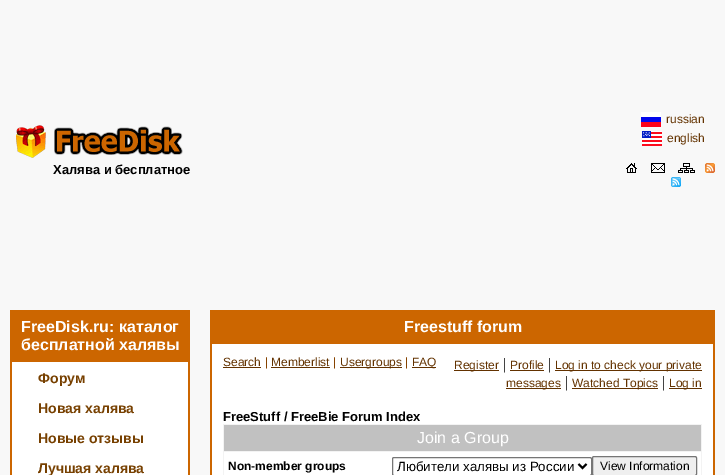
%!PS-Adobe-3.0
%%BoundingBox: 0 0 725 475
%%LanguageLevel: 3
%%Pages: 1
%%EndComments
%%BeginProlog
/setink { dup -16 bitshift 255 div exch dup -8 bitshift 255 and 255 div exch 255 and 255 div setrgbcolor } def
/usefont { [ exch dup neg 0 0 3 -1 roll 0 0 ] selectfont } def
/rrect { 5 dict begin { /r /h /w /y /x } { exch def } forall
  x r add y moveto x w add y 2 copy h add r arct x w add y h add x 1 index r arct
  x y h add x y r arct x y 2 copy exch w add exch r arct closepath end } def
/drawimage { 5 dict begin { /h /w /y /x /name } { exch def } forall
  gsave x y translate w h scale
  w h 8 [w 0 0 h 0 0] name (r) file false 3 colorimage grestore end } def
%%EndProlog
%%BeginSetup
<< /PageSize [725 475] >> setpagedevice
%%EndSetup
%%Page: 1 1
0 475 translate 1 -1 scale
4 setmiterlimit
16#F8F8F8 setink
0 0 725 475 rectfill
(img1.raw) 641 112 20 15 drawimage
/LiberationSans-Regular 12 usefont
16#633200 setink
666 123 moveto (russian) show
(img2.raw) 642 131 20 15 drawimage
667 142 moveto (english) show
(img3.raw) 626 163 11 10 drawimage
(img4.raw) 651 163 14 10 drawimage
(img5.raw) 678 163 17 10 drawimage
(img6.raw) 705 163 10 10 drawimage
(img7.raw) 671 177 10 10 drawimage
(img8.raw) 16 125 167 33 drawimage
/LiberationSans-Bold 13 usefont
16#000000 setink
53 174 moveto (Халява и бесплатное) show
16#CC6600 setink
10 310 180 52 rectfill
/LiberationSans-Bold 16 usefont
16#FFFFFF setink
21 332 moveto (FreeDisk.ru: каталог) show
21 350 moveto (бесплатной халявы) show
16#CC6600 setink
10 362 2 113 rectfill
16#FFFFFF setink
12 362 176 113 rectfill
/LiberationSans-Bold 14 usefont
16#774000 setink
[
    [(Форум) 38 383]
    [(Новая халява) 38 413]
    [(Новые отзывы) 38 443]
    [(Лучшая халява) 38 473]
] { aload pop moveto show } forall
16#CC6600 setink
188 362 2 113 rectfill
210 310 505 34 rectfill
/LiberationSans-Bold 16 usefont
16#FFFFFF setink
404 332 moveto (Freestuff forum) show
16#CC6600 setink
210 344 2 131 rectfill
16#FFFFFF setink
212 344 501 131 rectfill
/LiberationSans-Regular 12 usefont
16#633200 setink
223 366 moveto (Search) show
223 367 38 1 rectfill
16#864300 setink
265 366 moveto (|) show
16#633200 setink
271 366 moveto (Memberlist) show
271 367 59 1 rectfill
16#864300 setink
333 366 moveto (|) show
16#633200 setink
340 367 62 1 rectfill
340 366 moveto (Usergroups) show
16#864300 setink
405 366 moveto (|) show
16#633200 setink
412 367 24 1 rectfill
412 366 moveto (FAQ) show
454 370 45 1 rectfill
454 369 moveto (Register) show
/LiberationSerif-Regular 16 usefont
16#000000 setink
503 369 moveto (|) show
/LiberationSans-Regular 12 usefont
16#633200 setink
510 369 moveto (Profile) show
510 370 34 1 rectfill
/LiberationSerif-Regular 16 usefont
16#000000 setink
548 369 moveto (|) show
16#633200 setink
555 370 147 1 rectfill
/LiberationSans-Regular 12 usefont
555 369 moveto (Log in to check your private) show
506 388 55 1 rectfill
506 387 moveto (messages) show
/LiberationSerif-Regular 16 usefont
16#000000 setink
565 387 moveto (|) show
16#633200 setink
572 388 86 1 rectfill
/LiberationSans-Regular 12 usefont
572 387 moveto (Watched Topics) show
/LiberationSerif-Regular 16 usefont
16#000000 setink
662 387 moveto (|) show
16#633200 setink
669 388 33 1 rectfill
/LiberationSans-Regular 12 usefont
669 387 moveto (Log in) show
/LiberationSans-Bold 13 usefont
16#000000 setink
223 421 moveto (FreeStuff / FreeBie Forum Index) show
16#F3F3F3 setink
223 424 479 51 rectfill
16#C1C1C1 setink
224 425 477 26 rectfill
/LiberationSans-Regular 16 usefont
16#FFFFFF setink
417 443 moveto (Join a Group) show
224 452 477 23 rectfill
/LiberationSans-Bold 12 usefont
16#000000 setink
228 470 moveto (Non-member groups) show
16#767676 setink
392.5 457.5 199 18 1.5 rrect stroke
16#000000 setink
2 setlinewidth
578.5 464 moveto 582.5 468 lineto 586.5 464 lineto stroke
/LiberationSans-Regular 13.3 usefont
397 471 moveto (Любители халявы из России) show
16#EFEFEF setink
592.5 456.5 104 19 1.5 rrect gsave fill grestore
16#767676 setink
1 setlinewidth
stroke
/LiberationSans-Regular 12 usefont
16#000000 setink
600 470 moveto (View Information) show
16#CC6600 setink
713 344 2 131 rectfill
showpage
%%EOF
